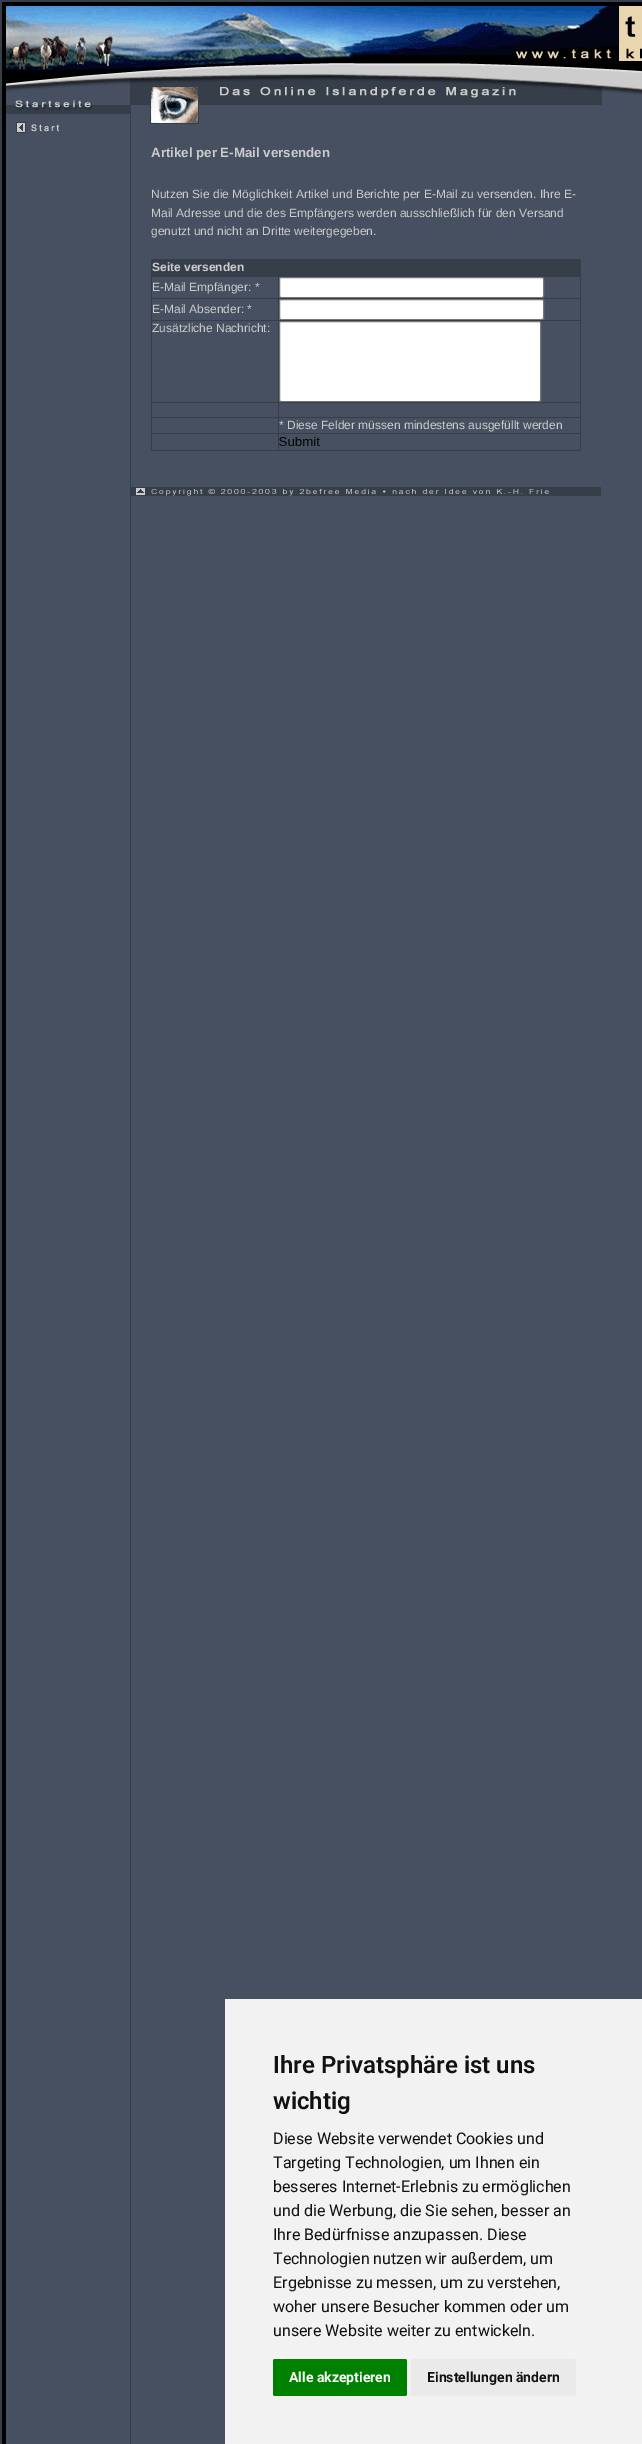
%!PS-Adobe-3.0
%%BoundingBox: 0 0 642 2444
%%LanguageLevel: 3
%%Pages: 1
%%EndComments
%%BeginProlog
/setink { dup -16 bitshift 255 div exch dup -8 bitshift 255 and 255 div exch 255 and 255 div setrgbcolor } def
/usefont { [ exch dup neg 0 0 3 -1 roll 0 0 ] selectfont } def
/rrect { 5 dict begin { /r /h /w /y /x } { exch def } forall
  x r add y moveto x w add y 2 copy h add r arct x w add y h add x 1 index r arct
  x y h add x y r arct x y 2 copy exch w add exch r arct closepath end } def
/drawimage { 5 dict begin { /h /w /y /x /name } { exch def } forall
  gsave x y translate w h scale
  w h 8 [w 0 0 h 0 0] name (r) file false 3 colorimage grestore end } def
%%EndProlog
%%BeginSetup
<< /PageSize [642 2444] >> setpagedevice
%%EndSetup
%%Page: 1 1
0 2444 translate 1 -1 scale
4 setmiterlimit
16#FFFFFF setink
0 0 642 2444 rectfill
(img1.raw) 0 0 642 70 drawimage
(img2.raw) 0 70 131 2374 drawimage
(img3.raw) 6 70 125 44 drawimage
(img4.raw) 16 122 43 11 drawimage
16#475060 setink
131 124 470 2320 rectfill
(img5.raw) 131 70 470 54 drawimage
/LiberationSans-Bold 13.3 usefont
16#CCCCCC setink
151 157 moveto (Artikel per E-Mail versenden) show
/LiberationSans-Regular 12 usefont
[
    [(Nutzen Sie die Möglichkeit Artikel und Berichte per E-Mail zu versenden. Ihre E-) 151 198]
    [(Mail Adresse und die des Empfängers werden ausschließlich für den Versand) 151 217]
    [(genutzt und nicht an Dritte weitergegeben.) 151 235]
] { aload pop moveto show } forall
[
    [580 259 1 192 16#363E4A]
    [151 450 430 1 16#363E4A]
    [151 259 429 17 16#363E4A]
] { aload pop setink rectfill } forall
/LiberationSans-Bold 12 usefont
16#CCCCCC setink
152 271 moveto (Seite versenden) show
16#363E4A setink
151 276 429 1 rectfill
151 276 1 22 rectfill
/LiberationSans-Regular 12 usefont
16#CCCCCC setink
152 291 moveto (E-Mail Empfänger: *) show
16#363E4A setink
278 276 1 22 rectfill
16#FFFFFF setink
279.5 277.5 264 20 1.5 rrect gsave fill grestore
16#767676 setink
stroke
16#363E4A setink
151 298 429 1 rectfill
151 298 1 22 rectfill
16#CCCCCC setink
152 313 moveto (E-Mail Absender: *) show
16#363E4A setink
278 298 1 22 rectfill
16#FFFFFF setink
279.5 299.5 264 20 1.5 rrect gsave fill grestore
16#767676 setink
stroke
16#363E4A setink
151 320 429 1 rectfill
151 320 1 82 rectfill
16#CCCCCC setink
152 332 moveto (Zusätzliche Nachricht:) show
16#363E4A setink
278 320 1 82 rectfill
16#FFFFFF setink
279.5 321.5 261 80 1.5 rrect gsave fill grestore
16#767676 setink
stroke
[
    [151 402 429 1 16#363E4A]
    [151 402 1 15 16#363E4A]
    [278 402 1 15 16#363E4A]
    [151 417 429 1 16#363E4A]
    [151 417 1 16 16#363E4A]
    [278 417 1 16 16#363E4A]
] { aload pop setink rectfill } forall
16#CCCCCC setink
279 429 moveto (* Diese Felder müssen mindestens ausgefüllt werden) show
[
    [151 433 429 1 16#363E4A]
    [151 433 1 17 16#363E4A]
    [278 433 1 17 16#363E4A]
] { aload pop setink rectfill } forall
(img6.raw) 279 437 41 9 drawimage
(img7.raw) 131 487 470 9 drawimage
16#475060 setink
601 105 41 1894 rectfill
(img8.raw) 601 70 41 35 drawimage
16#F2F2F2 setink
225 1999 417 445 rectfill
/Roboto-SemiBold 24 usefont
16#111111 setink
273 2073 moveto (Ihre Privatsphäre ist uns) show
273 2109 moveto (wichtig) show
/Roboto-Regular 16 usefont
[
    [(Diese Website verwendet Cookies und) 273 2144]
    [(Targeting Technologien, um Ihnen ein) 273 2168]
    [(besseres Internet-Erlebnis zu ermöglichen) 273 2192]
    [(und die Werbung, die Sie sehen, besser an) 273 2216]
    [(Ihre Bedürfnisse anzupassen. Diese) 273 2240]
    [(Technologien nutzen wir außerdem, um) 273 2264]
    [(Ergebnisse zu messen, um zu verstehen,) 273 2288]
    [(woher unsere Besucher kommen oder um) 273 2312]
    [(unsere Website weiter zu entwickeln.) 273 2336]
] { aload pop moveto show } forall
16#008000 setink
273 2359 134 37 2 rrect fill
/Roboto-Bold 14 usefont
16#FFFFFF setink
289 2382 moveto (Alle akzeptieren) show
16#EAEAEA setink
411 2359 165 37 2 rrect fill
16#111111 setink
427 2382 moveto (Einstellungen ändern) show
showpage
%%EOF
